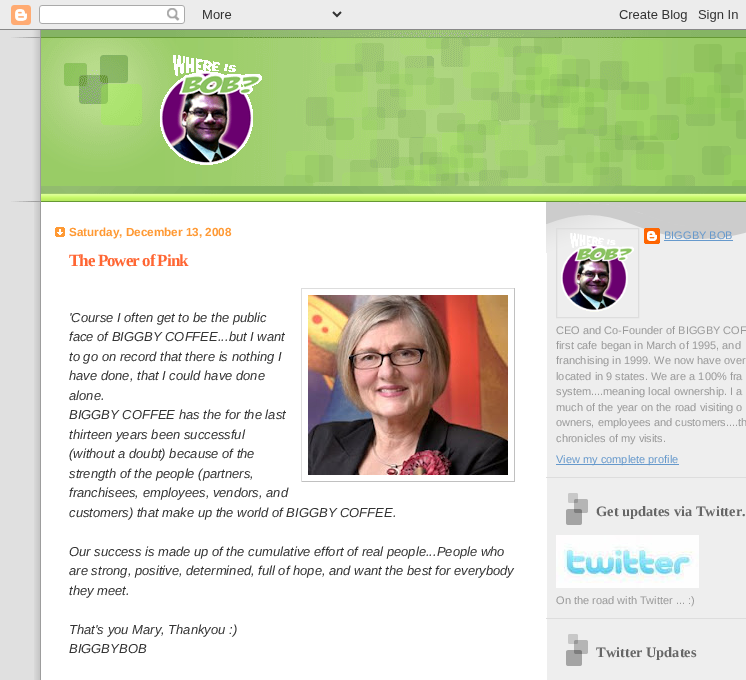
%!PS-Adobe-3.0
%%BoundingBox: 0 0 746 680
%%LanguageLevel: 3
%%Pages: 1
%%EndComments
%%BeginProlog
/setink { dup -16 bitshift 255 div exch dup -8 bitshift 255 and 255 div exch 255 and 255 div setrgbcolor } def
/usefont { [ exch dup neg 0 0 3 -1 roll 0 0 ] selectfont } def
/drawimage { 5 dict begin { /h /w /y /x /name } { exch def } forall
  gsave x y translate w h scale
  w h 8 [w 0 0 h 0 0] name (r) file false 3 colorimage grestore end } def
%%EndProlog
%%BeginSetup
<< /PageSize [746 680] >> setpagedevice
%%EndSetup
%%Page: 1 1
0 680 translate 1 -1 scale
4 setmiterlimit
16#E0E0E0 setink
0 0 746 680 rectfill
(img1.raw) 0 0 746 30 drawimage
(img2.raw) 34 202 712 478 drawimage
(img3.raw) 11 30 735 171 drawimage
(img4.raw) 11 186 735 16 drawimage
(img5.raw) 160 55 102 110 drawimage
(img6.raw) 55 227 10 10 drawimage
/LiberationSans-Bold 11.75 usefont
16#FF9933 setink
69 236 moveto (Saturday, December 13, 2008) show
/LiberationSerif-Bold 17 usefont
16#FF6633 setink
69 266 moveto -1 0 (The Power of Pink) ashow
/LiberationSans-Italic 13 usefont
16#333333 setink
69 322 moveto ('Course I often get to be the public) show
[
    [301 288 214 1 16#DDDDDD]
    [514 288 1 194 16#C0C0C0]
    [301 481 214 1 16#C0C0C0]
    [301 288 1 194 16#DDDDDD]
] { aload pop setink rectfill } forall
(img7.raw) 308 295 200 180 drawimage
16#333333 setink
[
    [(face of BIGGBY COFFEE...but I want) 69 341]
    [(to go on record that there is nothing I) 69 361]
    [(have done, that I could have done) 69 380]
    [(alone.) 69 400]
    [(BIGGBY COFFEE has the for the last) 69 419]
    [(thirteen years been successful) 69 439]
    [(\(without a doubt\) because of the) 69 458]
    [(strength of the people \(partners,) 69 478]
    [(franchisees, employees, vendors, and) 69 497]
    [(customers\) that make up the world of BIGGBY COFFEE.) 69 517]
    [(Our success is made up of the cumulative effort of real people...People who) 69 556]
    [(are strong, positive, determined, full of hope, and want the best for everybody) 69 575]
    [(they meet.) 69 595]
    [(That's you Mary, Thankyou :\)) 69 634]
    [(BIGGBYBOB) 69 653]
] { aload pop moveto show } forall
(img8.raw) 546 202 200 51 drawimage
16#DDDDDD setink
546 477 200 1 rectfill
556.5 228.5 82 89 rectstroke
(img9.raw) 561 233 73 79 drawimage
(img10.raw) 644 228 16 16 drawimage
/LiberationSans-Regular 11 usefont
16#6699CC setink
664 239 moveto (BIGGBY BOB) show
664 240 69 1 rectfill
16#999999 setink
[
    [(CEO and Co-Founder of BIGGBY COF) 556 334]
    [(first cafe began in March of 1995, and) 556 349]
    [(franchising in 1999. We now have over) 556 364]
    [(located in 9 states. We are a 100% fra) 556 380]
    [(system....meaning local ownership. I a) 556 395]
    [(much of the year on the road visiting o) 556 411]
    [(owners, employees and customers....th) 556 426]
    [(chronicles of my visits.) 556 442]
] { aload pop moveto show } forall
16#6699CC setink
556 464 123 1 rectfill
556 463 moveto (View my complete profile) show
16#DDDDDD setink
546 618 200 1 rectfill
(img11.raw) 566 493 22 32 drawimage
/LiberationSerif-Bold 14.4 usefont
16#666666 setink
596 516 moveto (Get updates via Twitter.) show
(img12.raw) 556 535 143 53 drawimage
/LiberationSans-Regular 11 usefont
16#999999 setink
556 604 moveto (On the road with Twitter ... :\)) show
(img11.raw) 566 634 22 32 drawimage
/LiberationSerif-Bold 14.4 usefont
16#666666 setink
596 657 moveto (Twitter Updates) show
showpage
%%EOF
